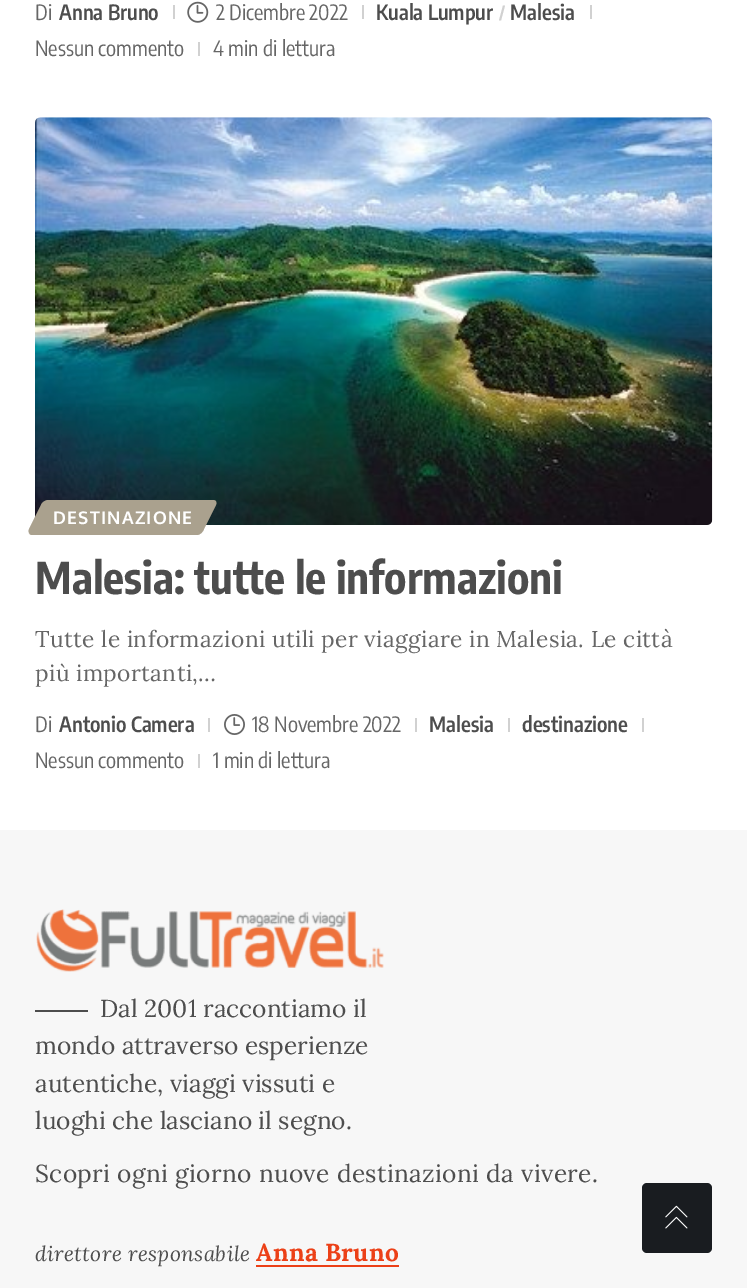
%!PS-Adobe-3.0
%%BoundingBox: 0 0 747 1288
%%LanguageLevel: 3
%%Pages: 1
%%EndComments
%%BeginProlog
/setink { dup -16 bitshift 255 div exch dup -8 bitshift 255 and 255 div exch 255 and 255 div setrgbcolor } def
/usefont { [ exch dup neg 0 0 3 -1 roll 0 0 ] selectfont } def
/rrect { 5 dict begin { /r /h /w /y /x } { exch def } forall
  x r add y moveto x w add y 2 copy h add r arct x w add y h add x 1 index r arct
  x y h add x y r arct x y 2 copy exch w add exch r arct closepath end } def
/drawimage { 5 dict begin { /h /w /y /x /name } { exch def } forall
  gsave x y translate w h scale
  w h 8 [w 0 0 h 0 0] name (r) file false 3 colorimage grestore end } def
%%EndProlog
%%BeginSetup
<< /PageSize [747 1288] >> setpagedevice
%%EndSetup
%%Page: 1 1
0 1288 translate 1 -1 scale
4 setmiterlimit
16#FFFFFF setink
0 0 747 1288 rectfill
/EncodeSansCondensed-Regular 21 usefont
16#666666 setink
35 20 moveto (Di) show
/EncodeSansCondensed-SemiBold 21 usefont
16#4D4D4D setink
59 20 moveto (Anna Bruno) show
16#D1D1D1 setink
173 5 2 14 rectfill
(img1.raw) 187 1 22 22 drawimage
/EncodeSansCondensed-Regular 21 usefont
16#666666 setink
216 20 moveto (2 Dicembre 2022) show
16#D1D1D1 setink
362 5 2 14 rectfill
/EncodeSansCondensed-SemiBold 21 usefont
16#4D4D4D setink
376 20 moveto (Kuala Lumpur) show
16#D1D1D1 setink
503 5.5 moveto 505 5.5 lineto 501 20.5 lineto 499 20.5 lineto closepath fill
16#4D4D4D setink
510 20 moveto (Malesia) show
16#D1D1D1 setink
590 5 2 14 rectfill
/EncodeSansCondensed-Regular 21 usefont
16#666666 setink
35 56 moveto (Nessun commento) show
16#D1D1D1 setink
198 42 2 14 rectfill
16#666666 setink
213 56 moveto (4 min di lettura) show
(img2.raw) 35 117 678 408 drawimage
16#AAA18E setink
48 500 moveto 213 500 lineto 216 500 217 502 216 505 curveto 204 529 lineto 203 532 200 535 197 535 curveto 32 535 lineto 29 535 28 532 29 529 curveto 41 505 lineto 42 502 46 500 48 500 curveto closepath fill
/Oxygen-Bold 17.5 usefont
16#FFFFFF setink
53 524 moveto 1.25 0 (DESTINAZIONE) ashow
/EncodeSansCondensed-Bold 43.75 usefont
16#4D4D4D setink
35 594 moveto (Malesia: tutte le informazioni) show
/Lora-Regular 22.75 usefont
16#666666 setink
35 647 moveto 0.35 0 (Tutte le informazioni utili per viaggiare in Malesia. Le città) ashow
35 681 moveto 0.35 0 (più importanti,…) ashow
/EncodeSansCondensed-Regular 21 usefont
35 732 moveto (Di) show
/EncodeSansCondensed-SemiBold 21 usefont
16#4D4D4D setink
59 732 moveto (Antonio Camera) show
16#D1D1D1 setink
208 718 2 14 rectfill
(img3.raw) 224 714 21 21 drawimage
/EncodeSansCondensed-Regular 21 usefont
16#666666 setink
252 732 moveto (18 Novembre 2022) show
16#D1D1D1 setink
415 718 2 14 rectfill
/EncodeSansCondensed-SemiBold 21 usefont
16#4D4D4D setink
429 732 moveto (Malesia) show
16#D1D1D1 setink
508 718 2 14 rectfill
16#4D4D4D setink
522 732 moveto (destinazione) show
16#D1D1D1 setink
642 718 2 14 rectfill
/EncodeSansCondensed-Regular 21 usefont
16#666666 setink
35 768 moveto (Nessun commento) show
16#D1D1D1 setink
198 754 2 14 rectfill
16#666666 setink
213 768 moveto (1 min di lettura) show
16#F7F7F7 setink
0 830 747 458 rectfill
(img4.raw) 36 909 348 63 drawimage
16#4D4D4D setink
35 1010 53 2 rectfill
/Lora-Regular 24.5 usefont
[
    [(Dal 2001 raccontiamo il) 100 1017]
    [(mondo attraverso esperienze) 35 1054]
    [(autentiche, viaggi vissuti e) 35 1092]
    [(luoghi che lasciano il segno.) 35 1129]
] { aload pop moveto show } forall
35 1182 moveto 0.35 0 (Scopri ogni giorno nuove destinazioni da vivere.) ashow
/Lora-Italic 21 usefont
35 1261 moveto 0.35 0 (direttore responsabile) ashow
/Lora-Bold 24.5 usefont
16#EC4017 setink
256 1261 moveto 0.35 0 (Anna Bruno) ashow
256 1265 143 2 rectfill
16#191C20 setink
642 1183 70 70 5 rrect fill
(img5.raw) 665 1205 23 24 drawimage
showpage
%%EOF
